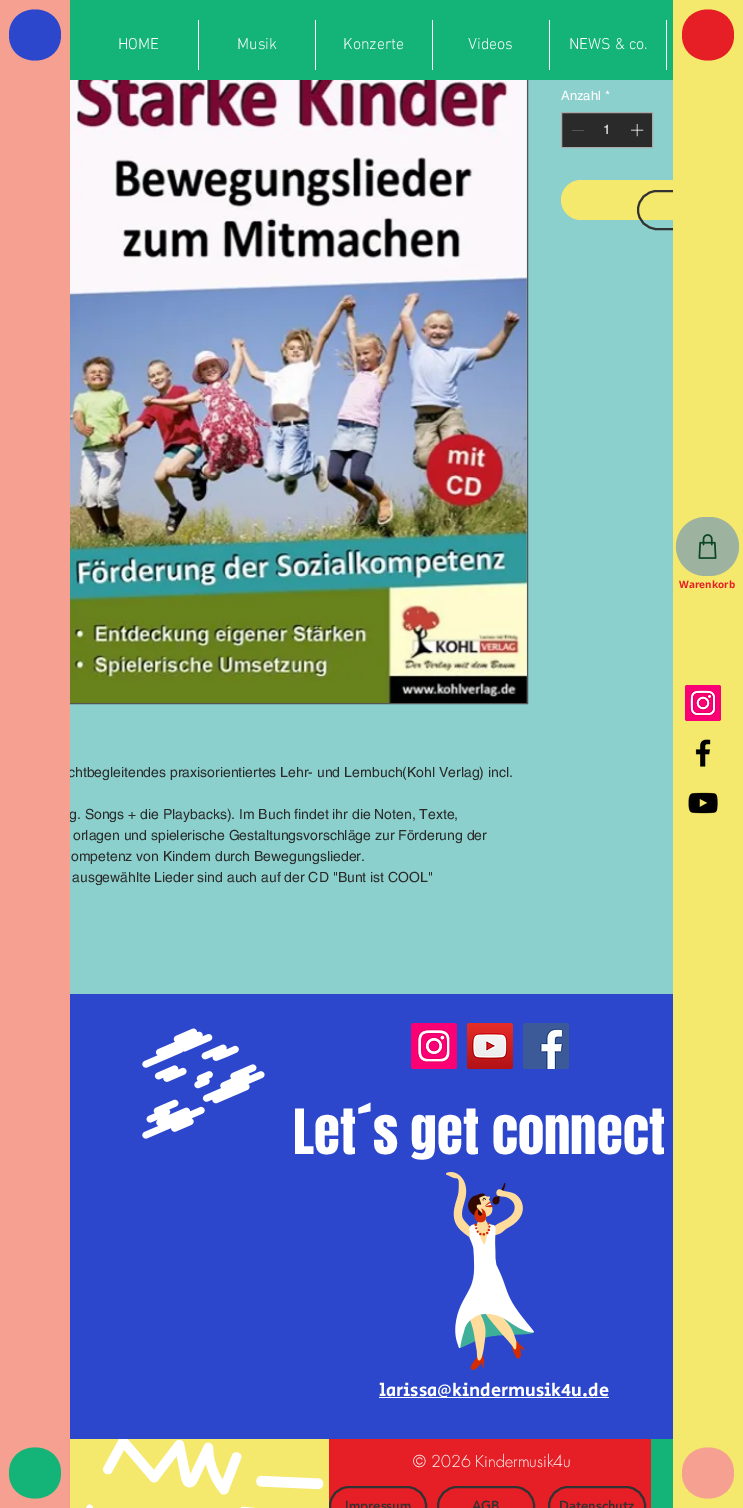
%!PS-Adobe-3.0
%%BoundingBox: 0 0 743 1508
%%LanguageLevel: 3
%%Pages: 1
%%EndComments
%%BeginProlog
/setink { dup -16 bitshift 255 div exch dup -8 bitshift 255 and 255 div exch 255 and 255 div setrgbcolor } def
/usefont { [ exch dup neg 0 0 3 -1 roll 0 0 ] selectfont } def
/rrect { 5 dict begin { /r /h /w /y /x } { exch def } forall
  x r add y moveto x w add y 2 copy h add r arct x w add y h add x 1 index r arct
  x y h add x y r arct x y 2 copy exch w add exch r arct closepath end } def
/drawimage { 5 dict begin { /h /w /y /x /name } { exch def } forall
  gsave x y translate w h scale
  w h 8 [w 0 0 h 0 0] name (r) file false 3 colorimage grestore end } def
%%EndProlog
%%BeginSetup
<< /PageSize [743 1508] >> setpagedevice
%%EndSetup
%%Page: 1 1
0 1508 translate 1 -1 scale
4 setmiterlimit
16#8BD0CD setink
0 0 743 1508 rectfill
16#555555 setink
26.5 -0.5 501 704 rectstroke
/helvetica-Regular 14 usefont
16#2A2A2A setink
68 777 moveto (chtbegleitendes praxisorientiertes Lehr- und Lernbuch\(Kohl Verlag\) incl.) show
69 819 moveto (g. Songs + die Playbacks\). Im Buch findet ihr die Noten, Texte,) show
16#F6A091 setink
0 0 70 1508 rectfill
16#2C47CC setink
61 35 moveto 61 69 9 69 9 35 curveto 9 1 61 1 61 35 curveto closepath fill
16#14B378 setink
70 0 603 80 rectfill
/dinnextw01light-Light 16 usefont
16#FFFFFF setink
118 49 moveto (HOME) show
198 20 1 50 rectfill
237 49 moveto (Musik) show
315 20 1 50 rectfill
343 49 moveto (Konzerte) show
432 20 1 50 rectfill
468 49 moveto (Videos) show
549 20 1 50 rectfill
569 49 moveto (NEWS & co.) show
666 20 1 50 rectfill
16#F4E96D setink
561 180 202 40 20 rrect fill
16#323232 setink
2 setlinewidth
638 191 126 38 19 rrect stroke
16#F4E96D setink
673 0 70 1508 rectfill
16#E61F26 setink
734 35 moveto 734 69 682 69 682 35 curveto 682 1 734 1 734 35 curveto closepath fill
/helvetica-Regular 13 usefont
16#FFFFFF setink
561 100 moveto (Anzahl) show
605 100 moveto (*) show
16#2A2A2A setink
561.5 112.5 moveto 652.5 112.5 lineto 652.5 147.5 lineto 561.5 147.5 lineto closepath gsave fill grestore
16#AAAAAA setink
1 setlinewidth
stroke
16#797979 setink
584 130 moveto 584 130.5 lineto 572 130.5 lineto 572 130 lineto closepath eofill
16#FFFFFF setink
603 134 moveto (1) show
(img1.raw) 631 124 13 13 drawimage
(img2.raw) 70 80 457 623 drawimage
/helvetica-Regular 14 usefont
16#2A2A2A setink
[
    [(orlagen und spielerische Gestaltungsvorschläge zur Förderung der) 73 840]
    [(ompetenz von Kindern durch Bewegungslieder.) 71 861]
    [(ausgewählte Lieder sind auch auf der CD "Bunt ist COOL") 72 882]
] { aload pop moveto show } forall
16#9DB39F setink
676 517 63 59 29.5 rrect fill
(img3.raw) 698 534 19 25 drawimage
/OpenSans-Bold 10 usefont
16#E61F26 setink
679 588 moveto (Warenkorb) show
(img4.raw) 685 685 36 36 drawimage
(img5.raw) 695 739 16 28 drawimage
(img6.raw) 688 792 30 22 drawimage
16#14B378 setink
61 1473 moveto 61 1507 9 1507 9 1473 curveto 9 1439 61 1439 61 1473 curveto closepath fill
16#2C47CC setink
70 994 603 445 rectfill
(img7.raw) 142 1028 123 111 drawimage
(img8.raw) 411 1023 46 46 drawimage
(img9.raw) 467 1023 46 46 drawimage
(img10.raw) 523 1023 46 46 drawimage
/Anton-Regular 53 usefont
16#FFFFFF setink
293 1154 moveto (Let´s get connect) show
(img11.raw) 446 1172 88 198 drawimage
379 1397 230 1 rectfill
/SecularOne-Regular 18 usefont
379 1396 moveto (larissa@kindermusik4u.de) show
16#F4E96D setink
70 1439 259 69 rectfill
(img12.raw) 86 1439 238 69 drawimage
16#E61F26 setink
329 1439 322 69 rectfill
/futura-Light 16 usefont
16#FFFFFF setink
413 1467 moveto (© 2026 Kindermusik4u) show
16#323232 setink
2 setlinewidth
330 1487 96 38 19 rrect stroke
/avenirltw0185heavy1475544-Black 13 usefont
345 1510 moveto (Impressum) show
438 1487 96 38 19 rrect stroke
472 1510 moveto (AGB) show
549 1487 96 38 19 rrect stroke
559 1510 moveto (Datenschutz) show
16#14B378 setink
651 1439 22 69 rectfill
16#F6A091 setink
734 1473 moveto 734 1507 682 1507 682 1473 curveto 682 1439 734 1439 734 1473 curveto closepath fill
showpage
%%EOF
